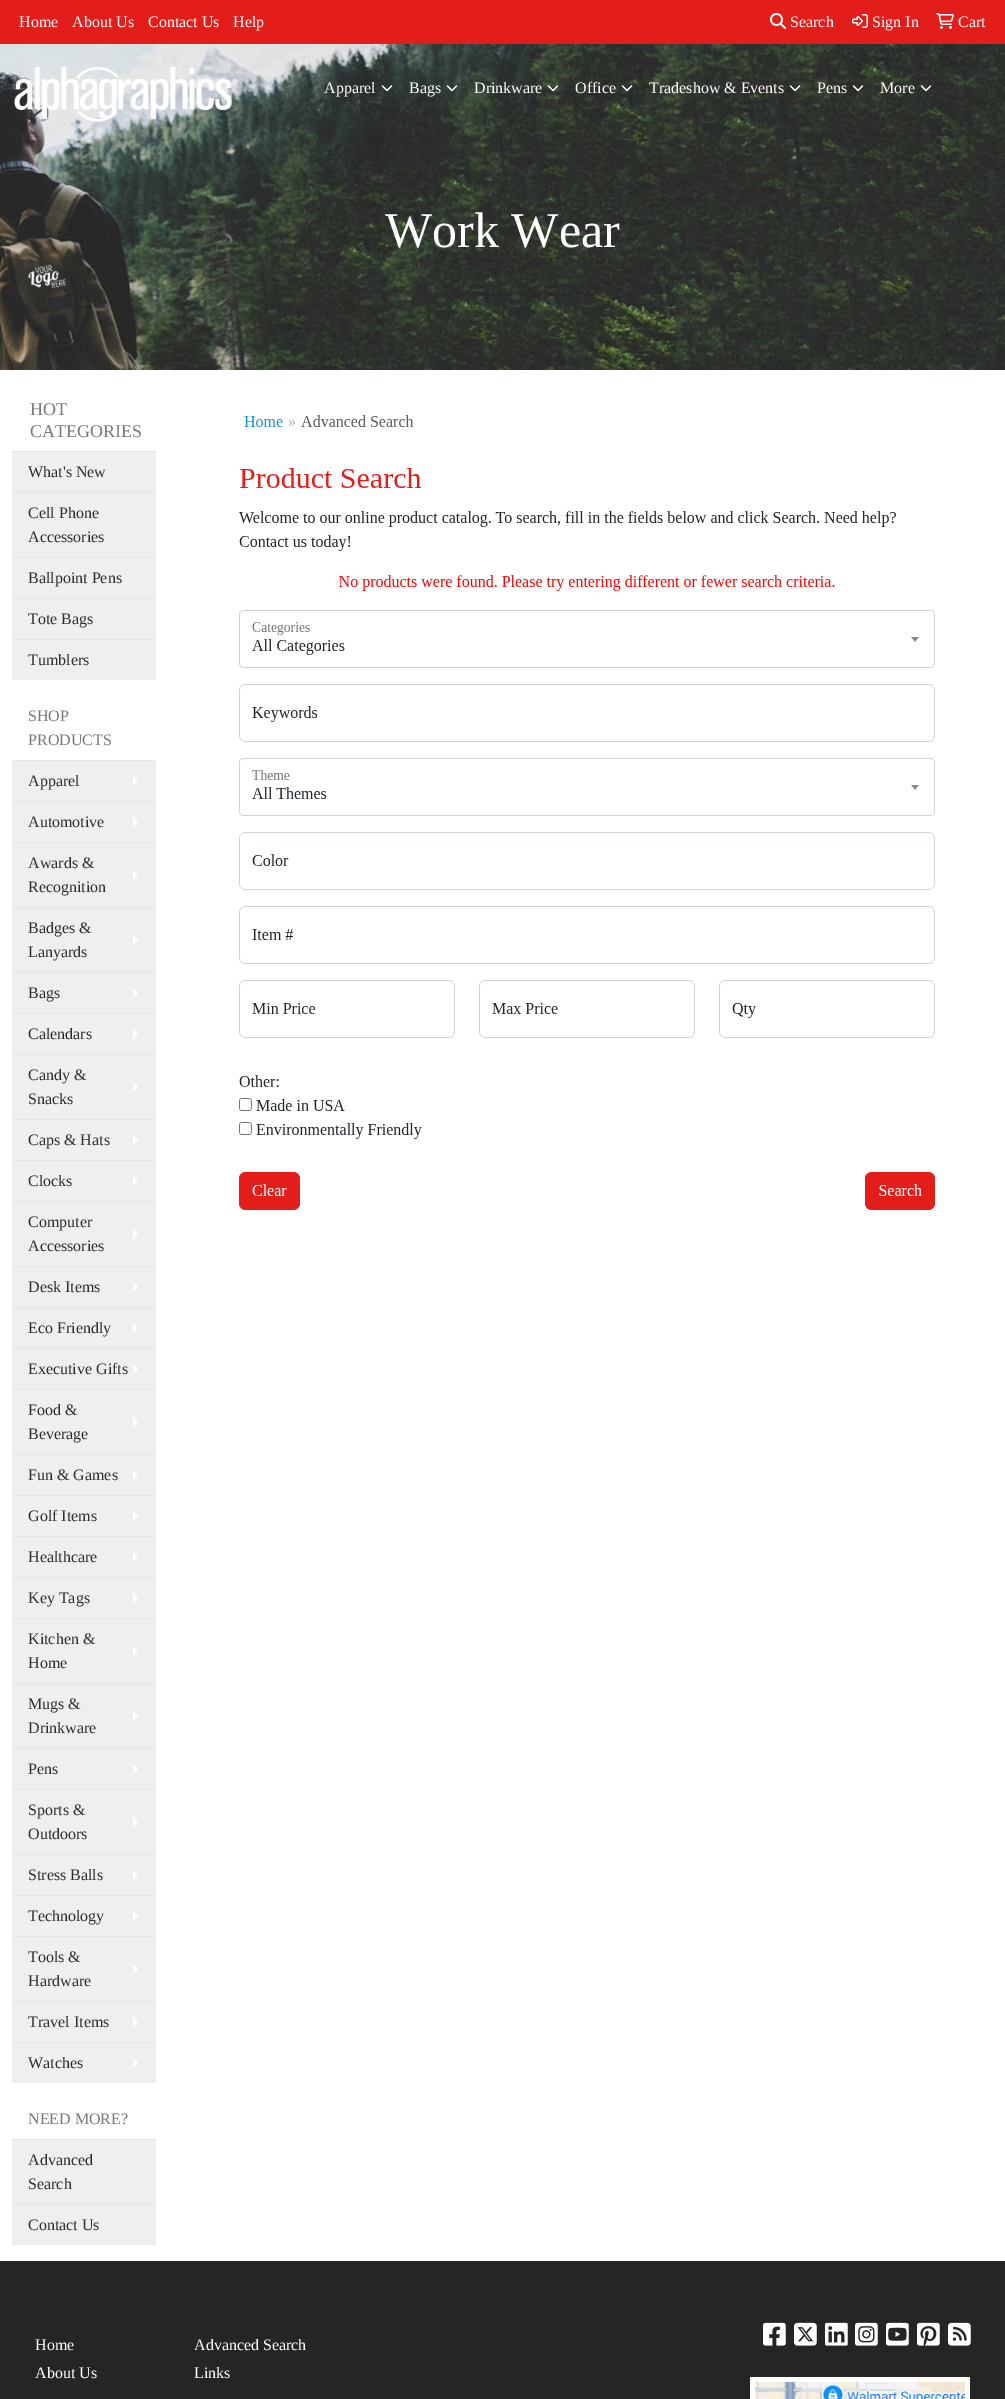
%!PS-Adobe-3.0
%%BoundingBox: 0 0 1005 2399
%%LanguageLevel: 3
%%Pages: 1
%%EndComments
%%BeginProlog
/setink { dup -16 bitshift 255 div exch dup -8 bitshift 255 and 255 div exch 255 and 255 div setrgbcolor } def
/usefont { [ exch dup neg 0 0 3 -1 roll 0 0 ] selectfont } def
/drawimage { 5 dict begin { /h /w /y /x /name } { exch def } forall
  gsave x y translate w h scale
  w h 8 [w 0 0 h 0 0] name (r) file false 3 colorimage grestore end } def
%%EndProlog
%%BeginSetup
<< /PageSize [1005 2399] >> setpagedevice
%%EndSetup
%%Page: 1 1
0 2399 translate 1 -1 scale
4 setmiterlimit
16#FFFFFF setink
0 0 1005 2399 rectfill
16#E31D1A setink
0 0 1005 44 rectfill
/LiberationSerif-Regular 16 usefont
16#FFFFFF setink
[
    [(Home) 19 27]
    [(About Us) 72 27]
    [(Contact Us) 148 27]
    [(Help) 233 27]
] { aload pop moveto show } forall
(img1.raw) 770 13 16 16 drawimage
790 27 moveto (Search) show
(img2.raw) 852 14 16 14 drawimage
872 27 moveto (Sign In) show
(img3.raw) 936 13 18 16 drawimage
958 27 moveto (Cart) show
(img12.raw) 0 44 1005 326 drawimage
(img4.raw) 14 66 225 56 drawimage
324 93 moveto (Apparel) show
(img5.raw) 381 85 12 7 drawimage
409 93 moveto (Bags) show
(img6.raw) 446 85 12 7 drawimage
474 93 moveto (Drinkware) show
(img7.raw) 547 85 12 7 drawimage
575 93 moveto (Office) show
(img8.raw) 621 85 12 7 drawimage
649 93 moveto (Tradeshow & Events) show
(img9.raw) 789 85 12 7 drawimage
817 93 moveto (Pens) show
(img10.raw) 852 85 12 7 drawimage
880 93 moveto (More) show
(img11.raw) 920 85 12 7 drawimage
/LiberationSerif-Regular 50 usefont
385 247 moveto (Work Wear) show
/LiberationSerif-Regular 18 usefont
16#77777B setink
30 415 moveto (HOT) show
30 437 moveto (CATEGORIES) show
16#EFEFEF setink
12 452 144 40 rectfill
16#E5E5E5 setink
12 451 144 1 rectfill
/LiberationSerif-Regular 16 usefont
16#2E2E2E setink
28 477 moveto (What's New) show
16#EFEFEF setink
12 493 144 64 rectfill
16#E5E5E5 setink
12 492 144 1 rectfill
16#2E2E2E setink
28 518 moveto (Cell Phone) show
28 542 moveto (Accessories) show
16#EFEFEF setink
12 558 144 40 rectfill
16#E5E5E5 setink
12 557 144 1 rectfill
16#2E2E2E setink
28 583 moveto (Ballpoint Pens) show
16#EFEFEF setink
12 599 144 40 rectfill
16#E5E5E5 setink
12 598 144 1 rectfill
16#2E2E2E setink
28 624 moveto (Tote Bags) show
16#EFEFEF setink
12 640 144 40 rectfill
16#E5E5E5 setink
12 639 144 1 rectfill
16#2E2E2E setink
28 665 moveto (Tumblers) show
16#77777B setink
28 721 moveto (SHOP) show
28 745 moveto (PRODUCTS) show
16#EFEFEF setink
12 761 144 40 rectfill
16#E5E5E5 setink
12 760 144 1 rectfill
16#2E2E2E setink
28 786 moveto (Apparel) show
16#FFFFFF setink
133 786 moveto 133 776 lineto 138 781 lineto closepath fill
16#EFEFEF setink
12 802 144 40 rectfill
16#E5E5E5 setink
12 801 144 1 rectfill
16#2E2E2E setink
28 827 moveto (Automotive) show
16#FFFFFF setink
133 827 moveto 133 817 lineto 138 822 lineto closepath fill
16#EFEFEF setink
12 843 144 64 rectfill
16#E5E5E5 setink
12 842 144 1 rectfill
16#2E2E2E setink
28 868 moveto (Awards &) show
16#FFFFFF setink
133 880 moveto 133 870 lineto 138 875 lineto closepath fill
16#2E2E2E setink
28 892 moveto (Recognition) show
16#EFEFEF setink
12 908 144 64 rectfill
16#E5E5E5 setink
12 907 144 1 rectfill
16#2E2E2E setink
28 933 moveto (Badges &) show
16#FFFFFF setink
133 945 moveto 133 935 lineto 138 940 lineto closepath fill
16#2E2E2E setink
28 957 moveto (Lanyards) show
16#EFEFEF setink
12 973 144 40 rectfill
16#E5E5E5 setink
12 972 144 1 rectfill
16#2E2E2E setink
28 998 moveto (Bags) show
16#FFFFFF setink
133 998 moveto 133 988 lineto 138 993 lineto closepath fill
16#EFEFEF setink
12 1014 144 40 rectfill
16#E5E5E5 setink
12 1013 144 1 rectfill
16#2E2E2E setink
28 1039 moveto (Calendars) show
16#FFFFFF setink
133 1039 moveto 133 1029 lineto 138 1034 lineto closepath fill
16#EFEFEF setink
12 1055 144 64 rectfill
16#E5E5E5 setink
12 1054 144 1 rectfill
16#2E2E2E setink
28 1080 moveto (Candy &) show
16#FFFFFF setink
133 1092 moveto 133 1082 lineto 138 1087 lineto closepath fill
16#2E2E2E setink
28 1104 moveto (Snacks) show
16#EFEFEF setink
12 1120 144 40 rectfill
16#E5E5E5 setink
12 1119 144 1 rectfill
16#2E2E2E setink
28 1145 moveto (Caps & Hats) show
16#FFFFFF setink
133 1145 moveto 133 1135 lineto 138 1140 lineto closepath fill
16#EFEFEF setink
12 1161 144 40 rectfill
16#E5E5E5 setink
12 1160 144 1 rectfill
16#2E2E2E setink
28 1186 moveto (Clocks) show
16#FFFFFF setink
133 1186 moveto 133 1176 lineto 138 1181 lineto closepath fill
16#EFEFEF setink
12 1202 144 64 rectfill
16#E5E5E5 setink
12 1201 144 1 rectfill
16#2E2E2E setink
28 1227 moveto (Computer) show
16#FFFFFF setink
133 1239 moveto 133 1229 lineto 138 1234 lineto closepath fill
16#2E2E2E setink
28 1251 moveto (Accessories) show
16#EFEFEF setink
12 1267 144 40 rectfill
16#E5E5E5 setink
12 1266 144 1 rectfill
16#2E2E2E setink
28 1292 moveto (Desk Items) show
16#FFFFFF setink
133 1292 moveto 133 1282 lineto 138 1287 lineto closepath fill
16#EFEFEF setink
12 1308 144 40 rectfill
16#E5E5E5 setink
12 1307 144 1 rectfill
16#2E2E2E setink
28 1333 moveto (Eco Friendly) show
16#FFFFFF setink
133 1333 moveto 133 1323 lineto 138 1328 lineto closepath fill
16#EFEFEF setink
12 1349 144 40 rectfill
16#E5E5E5 setink
12 1348 144 1 rectfill
16#2E2E2E setink
28 1374 moveto (Executive Gifts) show
16#FFFFFF setink
133 1374 moveto 133 1364 lineto 138 1369 lineto closepath fill
16#EFEFEF setink
12 1390 144 64 rectfill
16#E5E5E5 setink
12 1389 144 1 rectfill
16#2E2E2E setink
28 1415 moveto (Food &) show
16#FFFFFF setink
133 1427 moveto 133 1417 lineto 138 1422 lineto closepath fill
16#2E2E2E setink
28 1439 moveto (Beverage) show
16#EFEFEF setink
12 1455 144 40 rectfill
16#E5E5E5 setink
12 1454 144 1 rectfill
16#2E2E2E setink
28 1480 moveto (Fun & Games) show
16#FFFFFF setink
133 1480 moveto 133 1470 lineto 138 1475 lineto closepath fill
16#EFEFEF setink
12 1496 144 40 rectfill
16#E5E5E5 setink
12 1495 144 1 rectfill
16#2E2E2E setink
28 1521 moveto (Golf Items) show
16#FFFFFF setink
133 1521 moveto 133 1511 lineto 138 1516 lineto closepath fill
16#EFEFEF setink
12 1537 144 40 rectfill
16#E5E5E5 setink
12 1536 144 1 rectfill
16#2E2E2E setink
28 1562 moveto (Healthcare) show
16#FFFFFF setink
133 1562 moveto 133 1552 lineto 138 1557 lineto closepath fill
16#EFEFEF setink
12 1578 144 40 rectfill
16#E5E5E5 setink
12 1577 144 1 rectfill
16#2E2E2E setink
28 1603 moveto (Key Tags) show
16#FFFFFF setink
133 1603 moveto 133 1593 lineto 138 1598 lineto closepath fill
16#EFEFEF setink
12 1619 144 64 rectfill
16#E5E5E5 setink
12 1618 144 1 rectfill
16#2E2E2E setink
28 1644 moveto (Kitchen &) show
16#FFFFFF setink
133 1656 moveto 133 1646 lineto 138 1651 lineto closepath fill
16#2E2E2E setink
28 1668 moveto (Home) show
16#EFEFEF setink
12 1684 144 64 rectfill
16#E5E5E5 setink
12 1683 144 1 rectfill
16#2E2E2E setink
28 1709 moveto (Mugs &) show
16#FFFFFF setink
133 1721 moveto 133 1711 lineto 138 1716 lineto closepath fill
16#2E2E2E setink
28 1733 moveto (Drinkware) show
16#EFEFEF setink
12 1749 144 40 rectfill
16#E5E5E5 setink
12 1748 144 1 rectfill
16#2E2E2E setink
28 1774 moveto (Pens) show
16#FFFFFF setink
133 1774 moveto 133 1764 lineto 138 1769 lineto closepath fill
16#EFEFEF setink
12 1790 144 64 rectfill
16#E5E5E5 setink
12 1789 144 1 rectfill
16#2E2E2E setink
28 1815 moveto (Sports &) show
16#FFFFFF setink
133 1827 moveto 133 1817 lineto 138 1822 lineto closepath fill
16#2E2E2E setink
28 1839 moveto (Outdoors) show
16#EFEFEF setink
12 1855 144 40 rectfill
16#E5E5E5 setink
12 1854 144 1 rectfill
16#2E2E2E setink
28 1880 moveto (Stress Balls) show
16#FFFFFF setink
133 1880 moveto 133 1870 lineto 138 1875 lineto closepath fill
16#EFEFEF setink
12 1896 144 40 rectfill
16#E5E5E5 setink
12 1895 144 1 rectfill
16#2E2E2E setink
28 1921 moveto (Technology) show
16#FFFFFF setink
133 1921 moveto 133 1911 lineto 138 1916 lineto closepath fill
16#EFEFEF setink
12 1937 144 64 rectfill
16#E5E5E5 setink
12 1936 144 1 rectfill
16#2E2E2E setink
28 1962 moveto (Tools &) show
16#FFFFFF setink
133 1974 moveto 133 1964 lineto 138 1969 lineto closepath fill
16#2E2E2E setink
28 1986 moveto (Hardware) show
16#EFEFEF setink
12 2002 144 40 rectfill
16#E5E5E5 setink
12 2001 144 1 rectfill
16#2E2E2E setink
28 2027 moveto (Travel Items) show
16#FFFFFF setink
133 2027 moveto 133 2017 lineto 138 2022 lineto closepath fill
16#EFEFEF setink
12 2043 144 40 rectfill
16#E5E5E5 setink
12 2042 144 1 rectfill
16#2E2E2E setink
28 2068 moveto (Watches) show
16#FFFFFF setink
133 2068 moveto 133 2058 lineto 138 2063 lineto closepath fill
16#77777B setink
28 2124 moveto (NEED MORE?) show
16#EFEFEF setink
12 2140 144 64 rectfill
16#E5E5E5 setink
12 2139 144 1 rectfill
16#2E2E2E setink
28 2165 moveto (Advanced) show
28 2189 moveto (Search) show
16#EFEFEF setink
12 2205 144 40 rectfill
16#E5E5E5 setink
12 2204 144 1 rectfill
16#2E2E2E setink
28 2230 moveto (Contact Us) show
(img13.raw) 239 415 696 795 drawimage
16#252525 setink
0 2261 1005 138 rectfill
16#FFFFFF setink
[
    [(Home) 35 2350]
    [(About Us) 35 2378]
    [(Advanced Search) 194 2350]
    [(Links) 194 2378]
] { aload pop moveto show } forall
(img14.raw) 763 2322 23 24 drawimage
(img15.raw) 794 2322 23 24 drawimage
(img16.raw) 825 2322 23 24 drawimage
(img17.raw) 855 2322 23 24 drawimage
(img18.raw) 886 2322 23 24 drawimage
(img19.raw) 917 2322 23 24 drawimage
(img20.raw) 948 2322 23 24 drawimage
750 2377 220 22 rectfill
(img21.raw) 755 2382 210 17 drawimage
showpage
%%EOF
